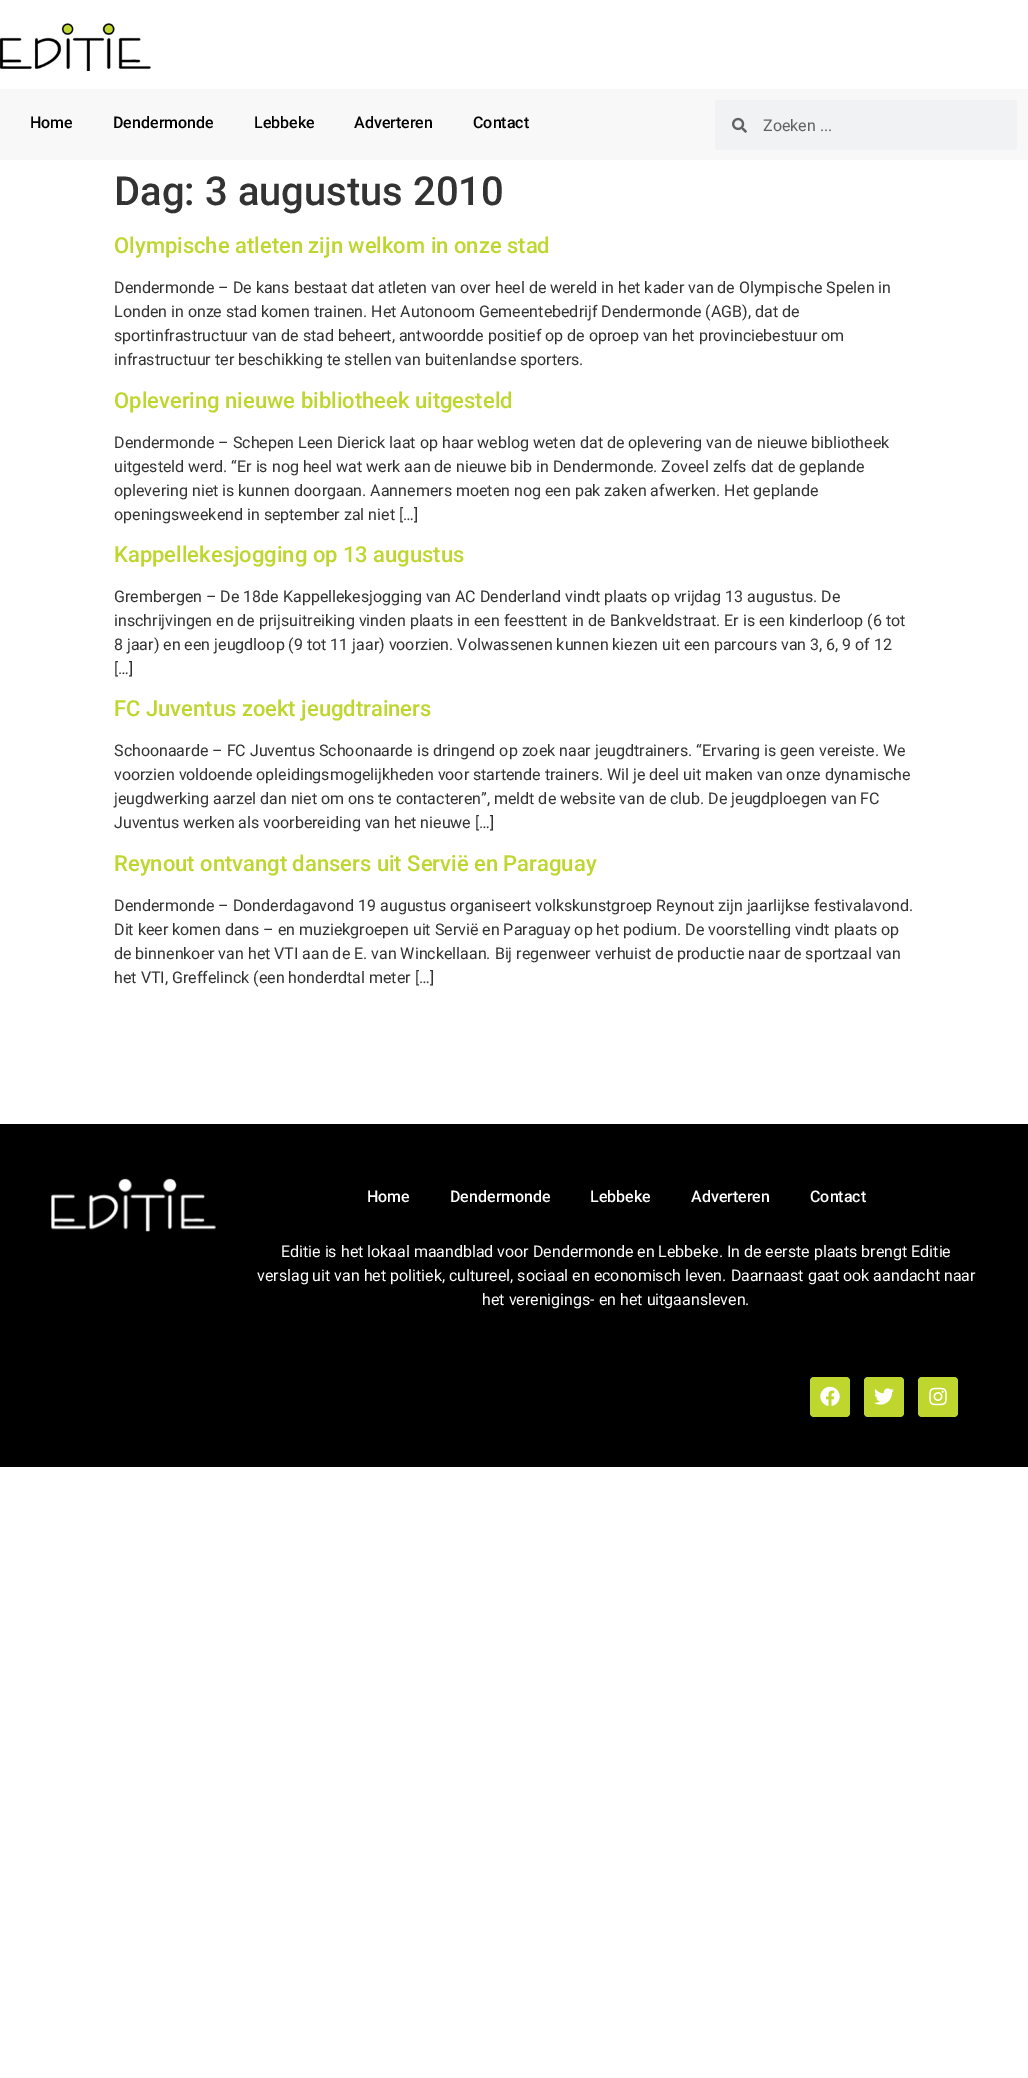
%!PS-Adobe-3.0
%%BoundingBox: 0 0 1028 2078
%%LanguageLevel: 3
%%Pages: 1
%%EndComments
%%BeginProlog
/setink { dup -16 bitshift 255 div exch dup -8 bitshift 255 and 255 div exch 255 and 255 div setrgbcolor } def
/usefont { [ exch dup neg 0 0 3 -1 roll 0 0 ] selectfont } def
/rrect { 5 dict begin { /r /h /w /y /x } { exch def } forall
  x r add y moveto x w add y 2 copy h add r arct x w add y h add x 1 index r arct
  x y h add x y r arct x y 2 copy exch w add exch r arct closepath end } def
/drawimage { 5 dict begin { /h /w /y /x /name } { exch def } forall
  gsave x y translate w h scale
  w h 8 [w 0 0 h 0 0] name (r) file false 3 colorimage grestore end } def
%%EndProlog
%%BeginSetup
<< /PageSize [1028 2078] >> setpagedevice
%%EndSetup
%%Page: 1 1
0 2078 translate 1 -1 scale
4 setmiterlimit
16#FFFFFF setink
0 0 1028 2078 rectfill
(img1.raw) 0 23 151 48 drawimage
16#F8F8F8 setink
0 89 1028 71 rectfill
/Roboto-Medium 16 usefont
16#000000 setink
[
    [(Home) 30 128]
    [(Dendermonde) 113 128]
    [(Lebbeke) 254 128]
    [(Adverteren) 354 128]
    [(Contact) 473 128]
] { aload pop moveto show } forall
16#F1F2F3 setink
715 100 302 50 3 rrect fill
(img2.raw) 732 117 15 16 drawimage
/Roboto-Regular 16 usefont
16#606161 setink
763 131 moveto (Zoeken ...) show
/Roboto-Medium 40 usefont
16#333333 setink
114 205 moveto (Dag: 3 augustus 2010) show
/Roboto-Medium 22 usefont
16#BFD62E setink
114 253 moveto (Olympische atleten zijn welkom in onze stad) show
/Roboto-Regular 16 usefont
16#333333 setink
[
    [(Dendermonde – De kans bestaat dat atleten van over heel de wereld in het kader van de Olympische Spelen in) 114 293]
    [(Londen in onze stad komen trainen. Het Autonoom Gemeentebedrijf Dendermonde \(AGB\), dat de) 114 317]
    [(sportinfrastructuur van de stad beheert, antwoordde positief op de oproep van het provinciebestuur om) 114 341]
    [(infrastructuur ter beschikking te stellen van buitenlandse sporters.) 114 365]
] { aload pop moveto show } forall
/Roboto-Medium 22 usefont
16#BFD62E setink
114 408 moveto (Oplevering nieuwe bibliotheek uitgesteld) show
/Roboto-Regular 16 usefont
16#333333 setink
[
    [(Dendermonde – Schepen Leen Dierick laat op haar weblog weten dat de oplevering van de nieuwe bibliotheek) 114 448]
    [(uitgesteld werd. “Er is nog heel wat werk aan de nieuwe bib in Dendermonde. Zoveel zelfs dat de geplande) 114 472]
    [(oplevering niet is kunnen doorgaan. Aannemers moeten nog een pak zaken afwerken. Het geplande) 114 496]
    [(openingsweekend in september zal niet […]) 114 520]
] { aload pop moveto show } forall
/Roboto-Medium 22 usefont
16#BFD62E setink
114 562 moveto (Kappellekesjogging op 13 augustus) show
/Roboto-Regular 16 usefont
16#333333 setink
[
    [(Grembergen – De 18de Kappellekesjogging van AC Denderland vindt plaats op vrijdag 13 augustus. De) 114 602]
    [(inschrijvingen en de prijsuitreiking vinden plaats in een feesttent in de Bankveldstraat. Er is een kinderloop \(6 tot) 114 626]
    [(8 jaar\) en een jeugdloop \(9 tot 11 jaar\) voorzien. Volwassenen kunnen kiezen uit een parcours van 3, 6, 9 of 12) 114 650]
    [([…]) 114 674]
] { aload pop moveto show } forall
/Roboto-Medium 22 usefont
16#BFD62E setink
114 716 moveto (FC Juventus zoekt jeugdtrainers) show
/Roboto-Regular 16 usefont
16#333333 setink
[
    [(Schoonaarde – FC Juventus Schoonaarde is dringend op zoek naar jeugdtrainers. “Ervaring is geen vereiste. We) 114 756]
    [(voorzien voldoende opleidingsmogelijkheden voor startende trainers. Wil je deel uit maken van onze dynamische) 114 780]
    [(jeugdwerking aarzel dan niet om ons te contacteren”, meldt de website van de club. De jeugdploegen van FC) 114 804]
    [(Juventus werken als voorbereiding van het nieuwe […]) 114 828]
] { aload pop moveto show } forall
/Roboto-Medium 22 usefont
16#BFD62E setink
114 871 moveto (Reynout ontvangt dansers uit Servië en Paraguay) show
/Roboto-Regular 16 usefont
16#333333 setink
[
    [(Dendermonde – Donderdagavond 19 augustus organiseert volkskunstgroep Reynout zijn jaarlijkse festivalavond.) 114 911]
    [(Dit keer komen dans – en muziekgroepen uit Servië en Paraguay op het podium. De voorstelling vindt plaats op) 114 935]
    [(de binnenkoer van het VTI aan de E. van Winckellaan. Bij regenweer verhuist de productie naar de sportzaal van) 114 959]
    [(het VTI, Greffelinck \(een honderdtal meter […]) 114 983]
] { aload pop moveto show } forall
16#000000 setink
0 1124 1028 343 rectfill
(img3.raw) 50 1178 166 54 drawimage
/Roboto-Medium 16 usefont
16#FFFFFF setink
[
    [(Home) 367 1202]
    [(Dendermonde) 450 1202]
    [(Lebbeke) 590 1202]
    [(Adverteren) 691 1202]
    [(Contact) 810 1202]
] { aload pop moveto show } forall
/Roboto-Regular 16 usefont
[
    [(Editie is het lokaal maandblad voor Dendermonde en Lebbeke. In de eerste plaats brengt Editie) 281 1257]
    [(verslag uit van het politiek, cultureel, sociaal en economisch leven. Daarnaast gaat ook aandacht naar) 257 1281]
    [(het verenigings- en het uitgaansleven.) 482 1305]
] { aload pop moveto show } forall
16#BFD62E setink
810 1377 40 40 4 rrect fill
(img4.raw) 820 1386 20 20 drawimage
864 1377 40 40 4 rrect fill
(img5.raw) 874 1388 20 17 drawimage
918 1377 40 40 4 rrect fill
(img6.raw) 929 1387 18 19 drawimage
showpage
%%EOF
